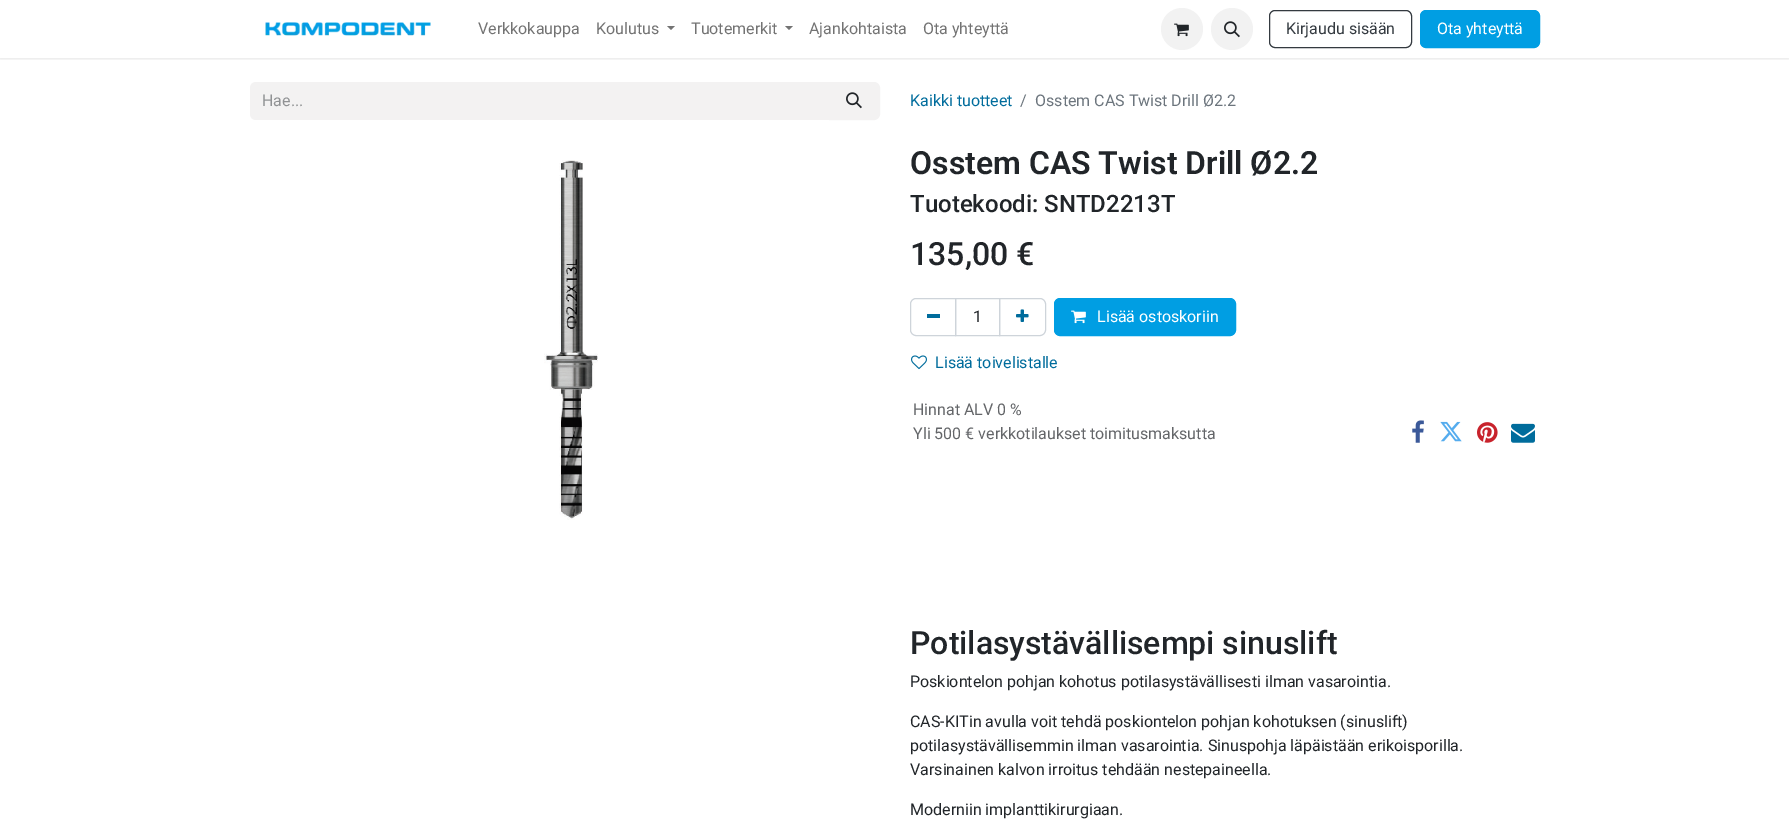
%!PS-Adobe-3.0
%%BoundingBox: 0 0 1789 840
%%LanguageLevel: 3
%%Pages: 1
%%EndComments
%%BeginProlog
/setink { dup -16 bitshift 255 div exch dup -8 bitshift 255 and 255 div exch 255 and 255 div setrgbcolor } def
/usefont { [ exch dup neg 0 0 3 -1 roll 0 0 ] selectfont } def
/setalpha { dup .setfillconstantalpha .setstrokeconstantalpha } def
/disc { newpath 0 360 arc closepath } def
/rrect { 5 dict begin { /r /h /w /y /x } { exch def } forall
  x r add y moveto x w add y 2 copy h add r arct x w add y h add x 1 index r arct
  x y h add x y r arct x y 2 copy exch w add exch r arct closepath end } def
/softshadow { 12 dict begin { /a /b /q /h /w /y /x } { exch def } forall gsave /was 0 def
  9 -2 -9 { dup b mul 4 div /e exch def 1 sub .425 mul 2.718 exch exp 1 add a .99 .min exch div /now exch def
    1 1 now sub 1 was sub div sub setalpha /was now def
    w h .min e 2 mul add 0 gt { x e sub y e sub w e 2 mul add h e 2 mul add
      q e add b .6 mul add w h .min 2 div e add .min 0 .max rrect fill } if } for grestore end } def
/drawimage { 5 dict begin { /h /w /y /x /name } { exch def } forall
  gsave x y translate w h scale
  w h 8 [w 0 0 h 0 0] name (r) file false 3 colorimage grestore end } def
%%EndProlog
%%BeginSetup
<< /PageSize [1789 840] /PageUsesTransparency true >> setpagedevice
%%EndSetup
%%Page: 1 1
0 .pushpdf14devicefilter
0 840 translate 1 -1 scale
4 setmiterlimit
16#FFFFFF setink
0 0 1789 840 rectfill
gsave
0 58 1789 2 rectclip
16#000000 setink
0 1 1789 58 0 1.5 0.1 softshadow
grestore
(img1.raw) 265 22 166 14 drawimage
/Roboto-Regular 16 usefont
16#737373 setink
478 34 moveto (Verkkokauppa) show
596 34 moveto (Koulutus) show
667 26 moveto 675 26 lineto 671 30 lineto closepath fill
691 34 moveto (Tuotemerkit) show
785 26 moveto 793 26 lineto 789 30 lineto closepath fill
809 34 moveto (Ajankohtaista) show
923 34 moveto (Ota yhteyttä) show
16#F2F2F2 setink
1182 29 21 disc fill
(img2.raw) 1174 23 15 14 drawimage
1232 29 21 disc fill
(img3.raw) 1224 21 16 17 drawimage
16#343A40 setink
1269.5 10.5 142 37 5.5 rrect stroke
1286 34 moveto (Kirjaudu sisään) show
16#009EE3 setink
1420.5 10.5 119 37 5.5 rrect gsave fill grestore
stroke
16#FFFFFF setink
1437 34 moveto (Ota yhteyttä) show
16#F3F2F2 setink
256 82 moveto 830 82 lineto 830 120 lineto 256 120 lineto 252.5 120 250 117.5 250 114 curveto 250 88 lineto 250 84.5 252.5 82 256 82 curveto closepath fill
16#909294 setink
262 106 moveto (Hae...) show
16#F3F2F2 setink
829.5 82.5 moveto 874 82.5 lineto 877 82.5 879.5 85 879.5 88 curveto 879.5 114 lineto 879.5 117 877 119.5 874 119.5 curveto 829.5 119.5 lineto closepath gsave fill grestore
stroke
(img4.raw) 846 92 16 17 drawimage
16#006C9C setink
910 106 moveto (Kaikki tuotteet) show
16#6C757D setink
1020 106 moveto (/) show
1035 106 moveto (Osstem CAS Twist Drill Ø2.2) show
(img5.raw) 544 160 54 360 drawimage
/Roboto-SemiBold 32 usefont
16#212529 setink
910 174 moveto (Osstem CAS Twist Drill Ø2.2) show
/Roboto-Medium 24 usefont
910 212 moveto (Tuotekoodi: SNTD2213T) show
/Roboto-Medium 32 usefont
910 265 moveto (135,00 €) show
16#CED4DA setink
955.5 298.5 44 37 rectstroke
916 298.5 moveto 955.5 298.5 lineto 955.5 335.5 lineto 916 335.5 lineto 913 335.5 910.5 333 910.5 330 curveto 910.5 304 lineto 910.5 301 913 298.5 916 298.5 curveto closepath stroke
16#006C9C setink
927 314 13 4 rectfill
/Roboto-Regular 16 usefont
16#212529 setink
973 322 moveto (1) show
16#CED4DA setink
999.5 298.5 moveto 1040 298.5 lineto 1043 298.5 1045.5 301 1045.5 304 curveto 1045.5 330 lineto 1045.5 333 1043 335.5 1040 335.5 curveto 999.5 335.5 lineto closepath stroke
(img6.raw) 1016 309 13 13 drawimage
16#009EE3 setink
1054.5 298.5 181 37 5.5 rrect gsave fill grestore
stroke
(img7.raw) 1071 310 15 14 drawimage
16#FFFFFF setink
1097 322 moveto (Lisää ostoskoriin) show
(img8.raw) 911 355 16 15 drawimage
16#006C9C setink
935 368 moveto (Lisää toivelistalle) show
16#646669 setink
913 415 moveto (Hinnat ALV 0 %) show
913 439 moveto (Yli 500 € verkkotilaukset toimitusmaksutta) show
(img9.raw) 1412 420 12 23 drawimage
(img10.raw) 1440 421 22 21 drawimage
(img11.raw) 1477 422 21 21 drawimage
(img12.raw) 1511 423 24 20 drawimage
/Roboto-Medium 32 usefont
16#212529 setink
910 654 moveto (Potilasystävällisempi sinuslift) show
/Roboto-Regular 16 usefont
[
    [(Poskiontelon pohjan kohotus potilasystävällisesti ilman vasarointia.) 910 687]
    [(CAS-KITin avulla voit tehdä poskiontelon pohjan kohotuksen \(sinuslift\)) 910 727]
    [(potilasystävällisemmin ilman vasarointia. Sinuspohja läpäistään erikoisporilla.) 910 751]
    [(Varsinainen kalvon irroitus tehdään nestepaineella.) 910 775]
    [(Moderniin implanttikirurgiaan.) 910 815]
] { aload pop moveto show } forall
.poppdf14devicefilter showpage
%%EOF
